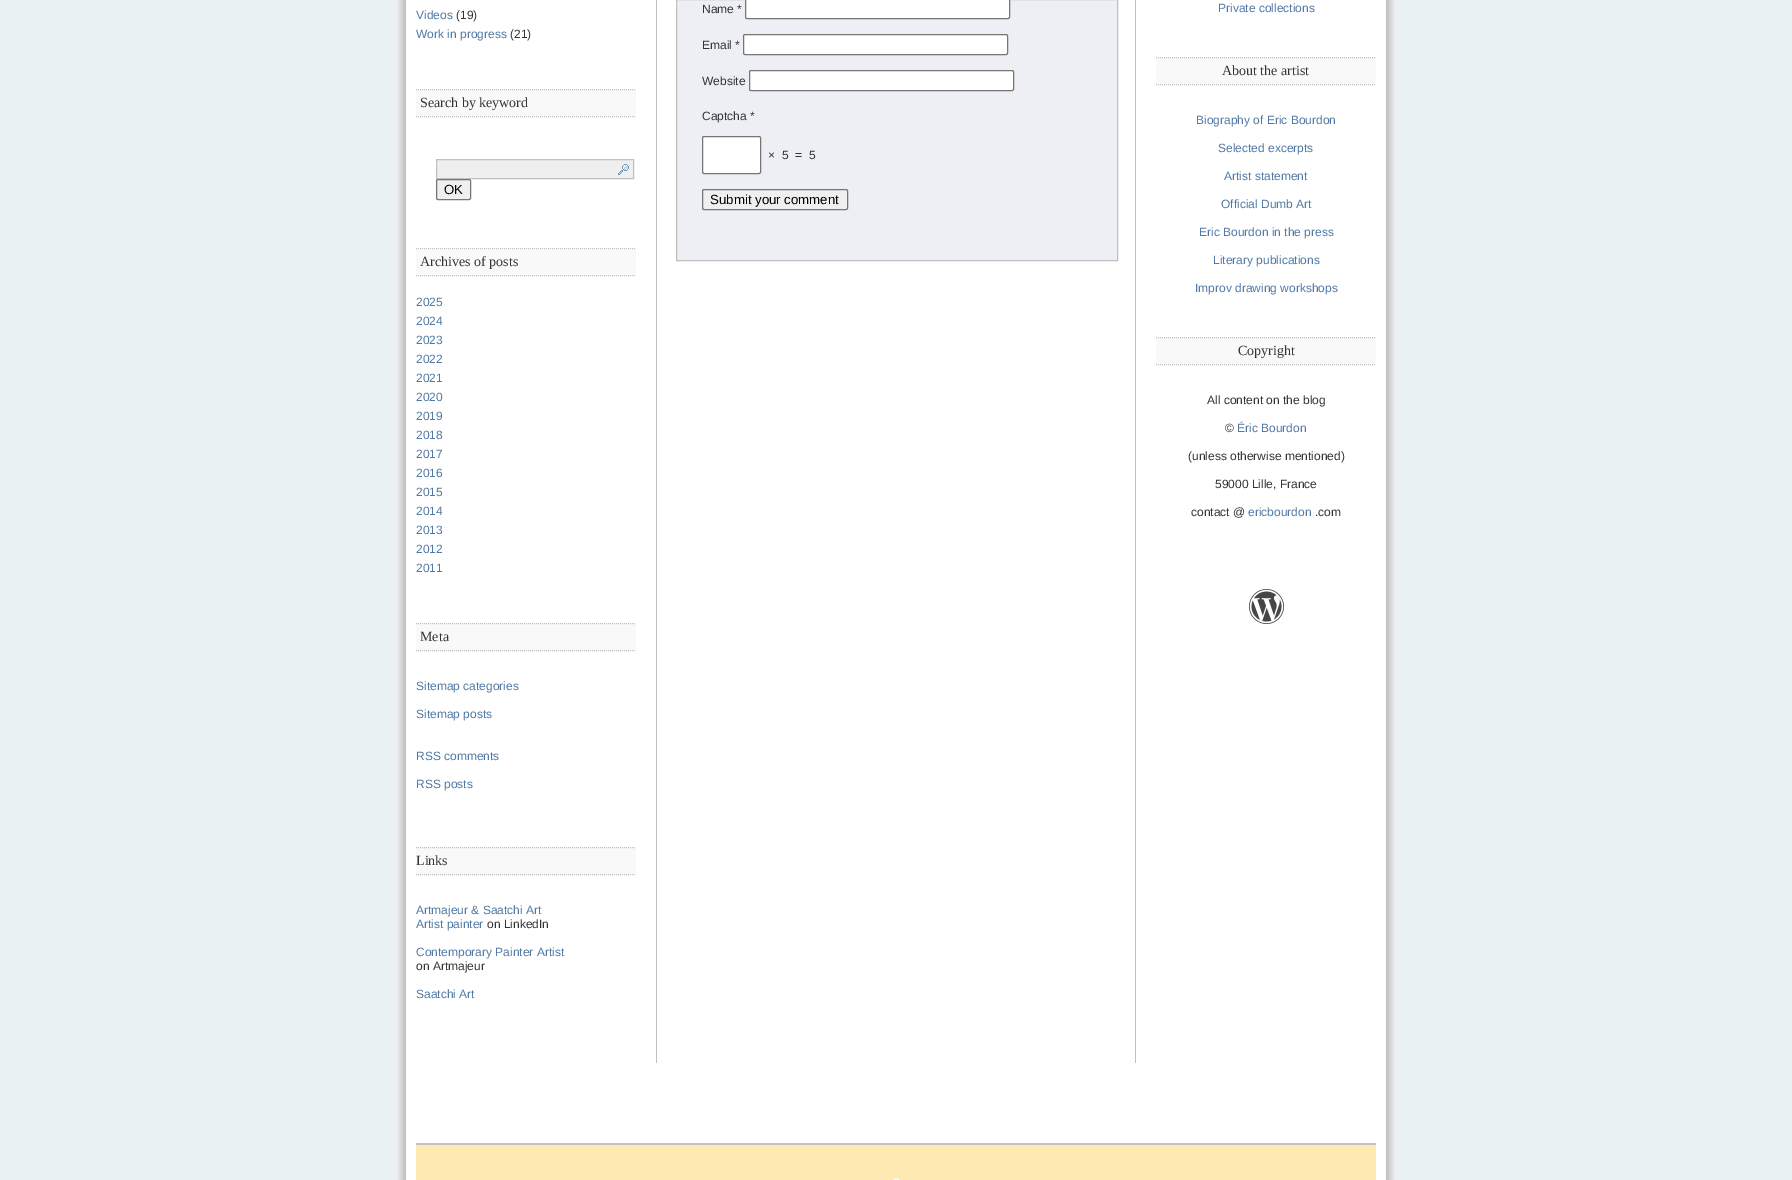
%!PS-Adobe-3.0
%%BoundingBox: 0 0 1792 1180
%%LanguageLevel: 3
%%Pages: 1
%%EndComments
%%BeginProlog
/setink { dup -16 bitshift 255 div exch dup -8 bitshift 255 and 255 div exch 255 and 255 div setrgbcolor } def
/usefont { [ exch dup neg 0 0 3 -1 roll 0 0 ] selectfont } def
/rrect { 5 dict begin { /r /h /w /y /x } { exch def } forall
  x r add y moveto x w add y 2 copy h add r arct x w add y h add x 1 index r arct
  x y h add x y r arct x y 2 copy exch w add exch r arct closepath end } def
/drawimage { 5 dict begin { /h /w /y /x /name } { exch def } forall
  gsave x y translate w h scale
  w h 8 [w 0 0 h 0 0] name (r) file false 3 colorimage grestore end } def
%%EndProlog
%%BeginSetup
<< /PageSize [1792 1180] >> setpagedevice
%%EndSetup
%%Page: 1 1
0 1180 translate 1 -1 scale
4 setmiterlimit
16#EAF1F3 setink
0 0 1792 1180 rectfill
(img1.raw) 396 0 1000 1063 drawimage
/LiberationSans-Regular 12 usefont
16#507AA5 setink
416 19 moveto (Videos) show
16#333333 setink
456 19 moveto (\(19\)) show
16#507AA5 setink
416 38 moveto (Work in progress) show
16#333333 setink
510 38 moveto (\(21\)) show
16#F9F9F9 setink
416 89 220 28 rectfill
16#C0C0C0 setink
[1 1] 0 setdash
416 89.5 moveto 636 89.5 lineto stroke
416 116.5 moveto 636 116.5 lineto stroke
/LiberationSerif-Regular 14 usefont
16#333333 setink
420 107 moveto (Search by keyword) show
(img2.raw) 437 160 196 18 drawimage
16#C0C0C0 setink
[] 0 setdash
436.5 159.5 197 19 rectstroke
16#EFEFEF setink
436.5 179.5 34 20 1.5 rrect gsave fill grestore
16#767676 setink
stroke
/LiberationSans-Regular 13.25 usefont
16#000000 setink
444 194 moveto (OK) show
16#F9F9F9 setink
416 248 220 28 rectfill
16#C0C0C0 setink
[1 1] 0 setdash
416 248.5 moveto 636 248.5 lineto stroke
416 275.5 moveto 636 275.5 lineto stroke
/LiberationSerif-Regular 14 usefont
16#333333 setink
420 266 moveto (Archives of posts) show
/LiberationSans-Regular 12 usefont
16#507AA5 setink
[
    [(2025) 416 306]
    [(2024) 416 325]
    [(2023) 416 344]
    [(2022) 416 363]
    [(2021) 416 382]
    [(2020) 416 401]
    [(2019) 416 420]
    [(2018) 416 439]
    [(2017) 416 458]
    [(2016) 416 477]
    [(2015) 416 496]
    [(2014) 416 515]
    [(2013) 416 534]
    [(2012) 416 553]
    [(2011) 416 572]
] { aload pop moveto show } forall
16#F9F9F9 setink
416 623 220 28 rectfill
16#C0C0C0 setink
416 623.5 moveto 636 623.5 lineto stroke
416 650.5 moveto 636 650.5 lineto stroke
/LiberationSerif-Regular 14 usefont
16#333333 setink
420 641 moveto (Meta) show
/LiberationSans-Regular 12 usefont
16#507AA5 setink
[
    [(Sitemap categories) 416 690]
    [(Sitemap posts) 416 718]
    [(RSS comments) 416 760]
    [(RSS posts) 416 788]
] { aload pop moveto show } forall
16#F9F9F9 setink
416 847 220 28 rectfill
16#C0C0C0 setink
416 847.5 moveto 636 847.5 lineto stroke
416 874.5 moveto 636 874.5 lineto stroke
/LiberationSerif-Regular 14 usefont
16#333333 setink
416 865 moveto (Links) show
/LiberationSans-Regular 12 usefont
16#507AA5 setink
416 914 moveto (Artmajeur & Saatchi Art) show
416 928 moveto (Artist painter) show
16#333333 setink
487 928 moveto (on LinkedIn) show
16#507AA5 setink
416 956 moveto (Contemporary Painter Artist) show
16#333333 setink
416 970 moveto (on Artmajeur) show
16#507AA5 setink
416 998 moveto (Saatchi Art) show
16#EDEFF4 setink
676.5 -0.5 moveto 1117.5 -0.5 lineto 1117.5 260.5 lineto 676.5 260.5 lineto closepath gsave fill grestore
16#C0C0C0 setink
[] 0 setdash
stroke
16#333333 setink
702 13 moveto (Name *) show
16#FFFFFF setink
745.5 -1.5 264 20 1.5 rrect gsave fill grestore
16#767676 setink
stroke
16#333333 setink
702 49 moveto (Email *) show
16#FFFFFF setink
743.5 34.5 264 20 1.5 rrect gsave fill grestore
16#767676 setink
stroke
16#333333 setink
702 85 moveto (Website) show
16#FFFFFF setink
749.5 70.5 264 20 1.5 rrect gsave fill grestore
16#767676 setink
stroke
16#333333 setink
702 120 moveto (Captcha *) show
16#FFFFFF setink
702.5 136.5 58 37 1.5 rrect gsave fill grestore
16#767676 setink
stroke
16#333333 setink
768 159 moveto (×  5  =  5) show
16#EFEFEF setink
702.5 189.5 145 20 1.5 rrect gsave fill grestore
16#767676 setink
stroke
/LiberationSans-Regular 13.25 usefont
16#000000 setink
710 204 moveto (Submit your comment) show
/LiberationSans-Regular 12 usefont
16#507AA5 setink
1218 12 moveto (Private collections) show
16#F9F9F9 setink
1156 57 220 28 rectfill
16#C0C0C0 setink
[1 1] 0 setdash
1156 57.5 moveto 1376 57.5 lineto stroke
1156 84.5 moveto 1376 84.5 lineto stroke
/LiberationSerif-Regular 14 usefont
16#333333 setink
1222 75 moveto (About the artist) show
/LiberationSans-Regular 12 usefont
16#507AA5 setink
[
    [(Biography of Eric Bourdon) 1196 124]
    [(Selected excerpts) 1218 152]
    [(Artist statement) 1224 180]
    [(Official Dumb Art) 1221 208]
    [(Eric Bourdon in the press) 1199 236]
    [(Literary publications) 1213 264]
    [(Improv drawing workshops) 1195 292]
] { aload pop moveto show } forall
16#F9F9F9 setink
1156 337 220 28 rectfill
16#C0C0C0 setink
1156 337.5 moveto 1376 337.5 lineto stroke
1156 364.5 moveto 1376 364.5 lineto stroke
/LiberationSerif-Regular 14 usefont
16#333333 setink
1238 355 moveto (Copyright) show
/LiberationSans-Regular 12 usefont
1207 404 moveto (All content on the blog) show
1225 432 moveto (©) show
16#507AA5 setink
1237 432 moveto (Éric Bourdon) show
16#333333 setink
[
    [(\(unless otherwise mentioned\)) 1188 460]
    [(59000 Lille, France) 1215 488]
    [(contact @) 1191 516]
] { aload pop moveto show } forall
16#507AA5 setink
1248 516 moveto (ericbourdon) show
16#333333 setink
1315 516 moveto (.com) show
(img3.raw) 1249 589 35 35 drawimage
(img4.raw) 396 1063 1000 117 drawimage
16#FFE9B2 setink
416 1145 960 35 rectfill
16#C0C0C0 setink
416 1143 960 2 rectfill
(img5.raw) 893 1178 7 2 drawimage
showpage
%%EOF
